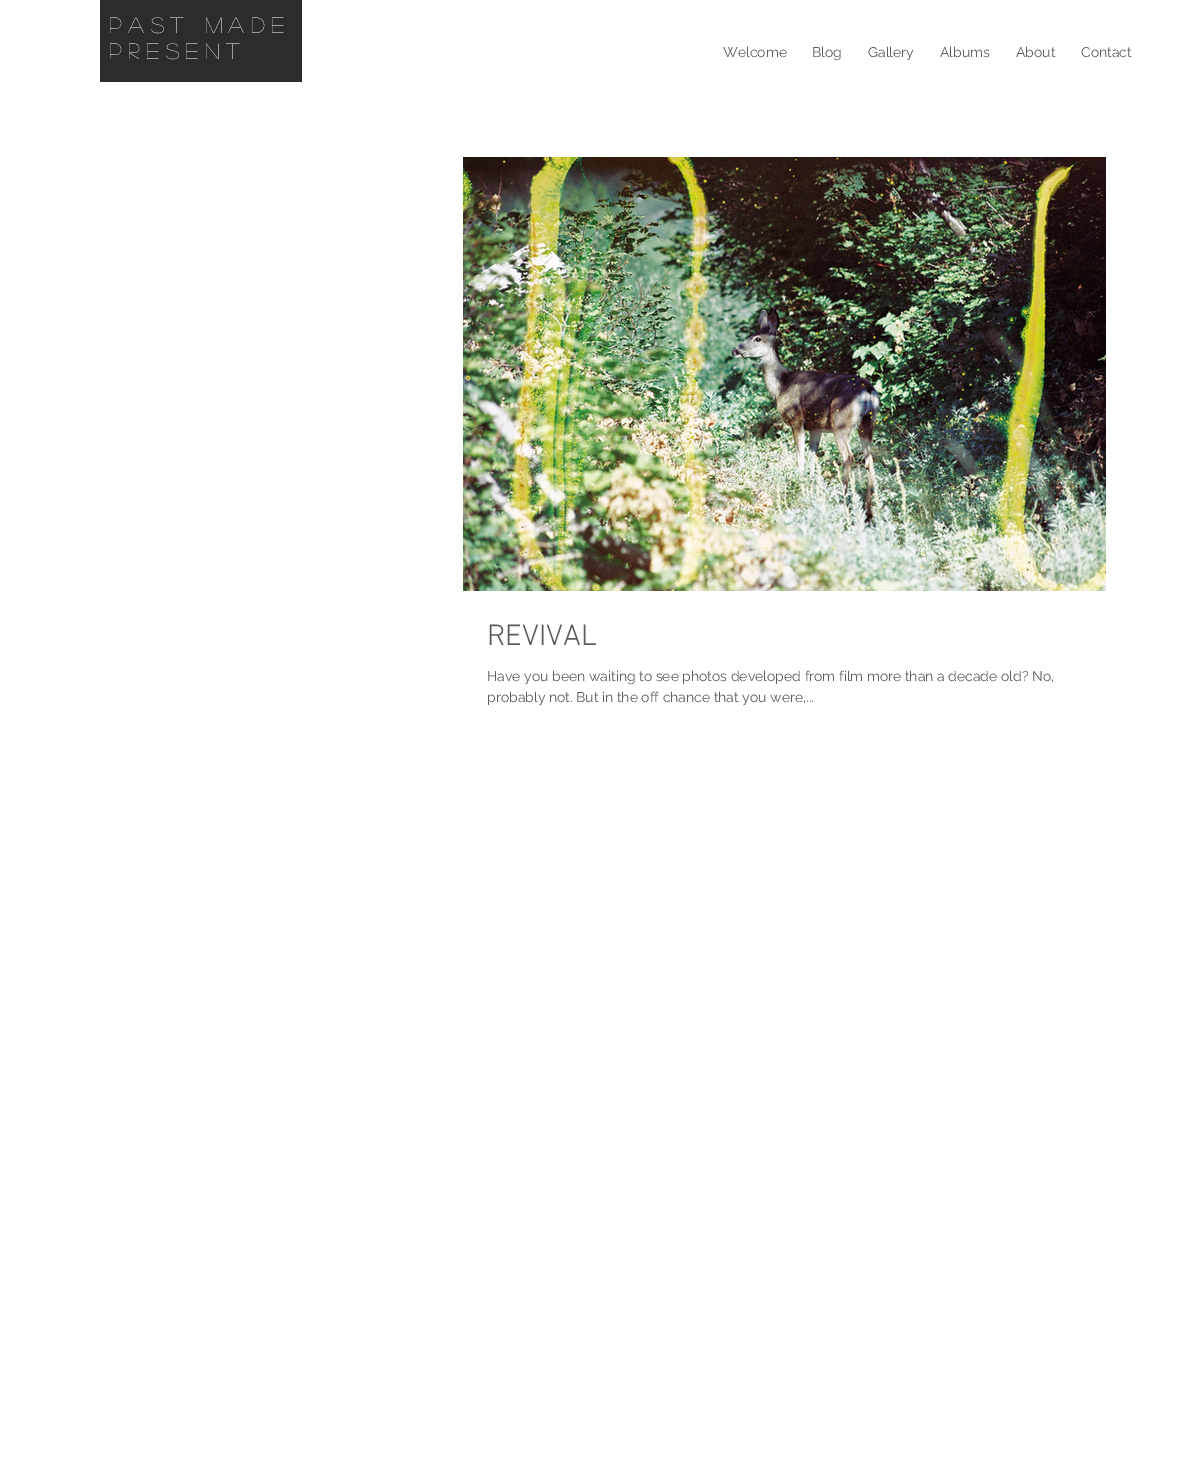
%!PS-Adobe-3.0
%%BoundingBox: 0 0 1197 1480
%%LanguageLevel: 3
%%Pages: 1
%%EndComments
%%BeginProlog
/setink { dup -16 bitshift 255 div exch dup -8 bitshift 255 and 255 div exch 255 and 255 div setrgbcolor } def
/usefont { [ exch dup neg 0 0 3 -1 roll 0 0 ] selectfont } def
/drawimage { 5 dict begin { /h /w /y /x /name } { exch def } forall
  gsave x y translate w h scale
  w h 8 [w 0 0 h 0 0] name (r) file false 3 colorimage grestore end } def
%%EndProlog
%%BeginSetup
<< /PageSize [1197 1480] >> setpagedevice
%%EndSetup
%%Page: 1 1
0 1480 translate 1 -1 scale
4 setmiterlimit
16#FFFFFF setink
0 0 1197 1480 rectfill
16#2C2C2B setink
100 0 202 82 rectfill
/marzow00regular-Regular 22 usefont
16#FFFFFF setink
109 33 moveto 6.5 0 (PAST MADE) ashow
109 59 moveto 6.5 0 (PRESENT) ashow
/Raleway-Regular 14 usefont
16#5E5D5D setink
[
    [(Welcome) 723 57]
    [(Blog) 812 57]
    [(Gallery) 868 57]
    [(Albums) 940 57]
    [(About) 1016 57]
    [(Contact) 1081 57]
] { aload pop moveto show } forall
(img1.raw) 463 157 643 434 drawimage
/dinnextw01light-Light 30 usefont
487 645 moveto (REVIVAL) show
/Raleway-Regular 14 usefont
487 681 moveto (Have you been waiting to see photos developed from film more than a decade old? No,) show
487 702 moveto (probably not. But in the off chance that you were,...) show
showpage
%%EOF
